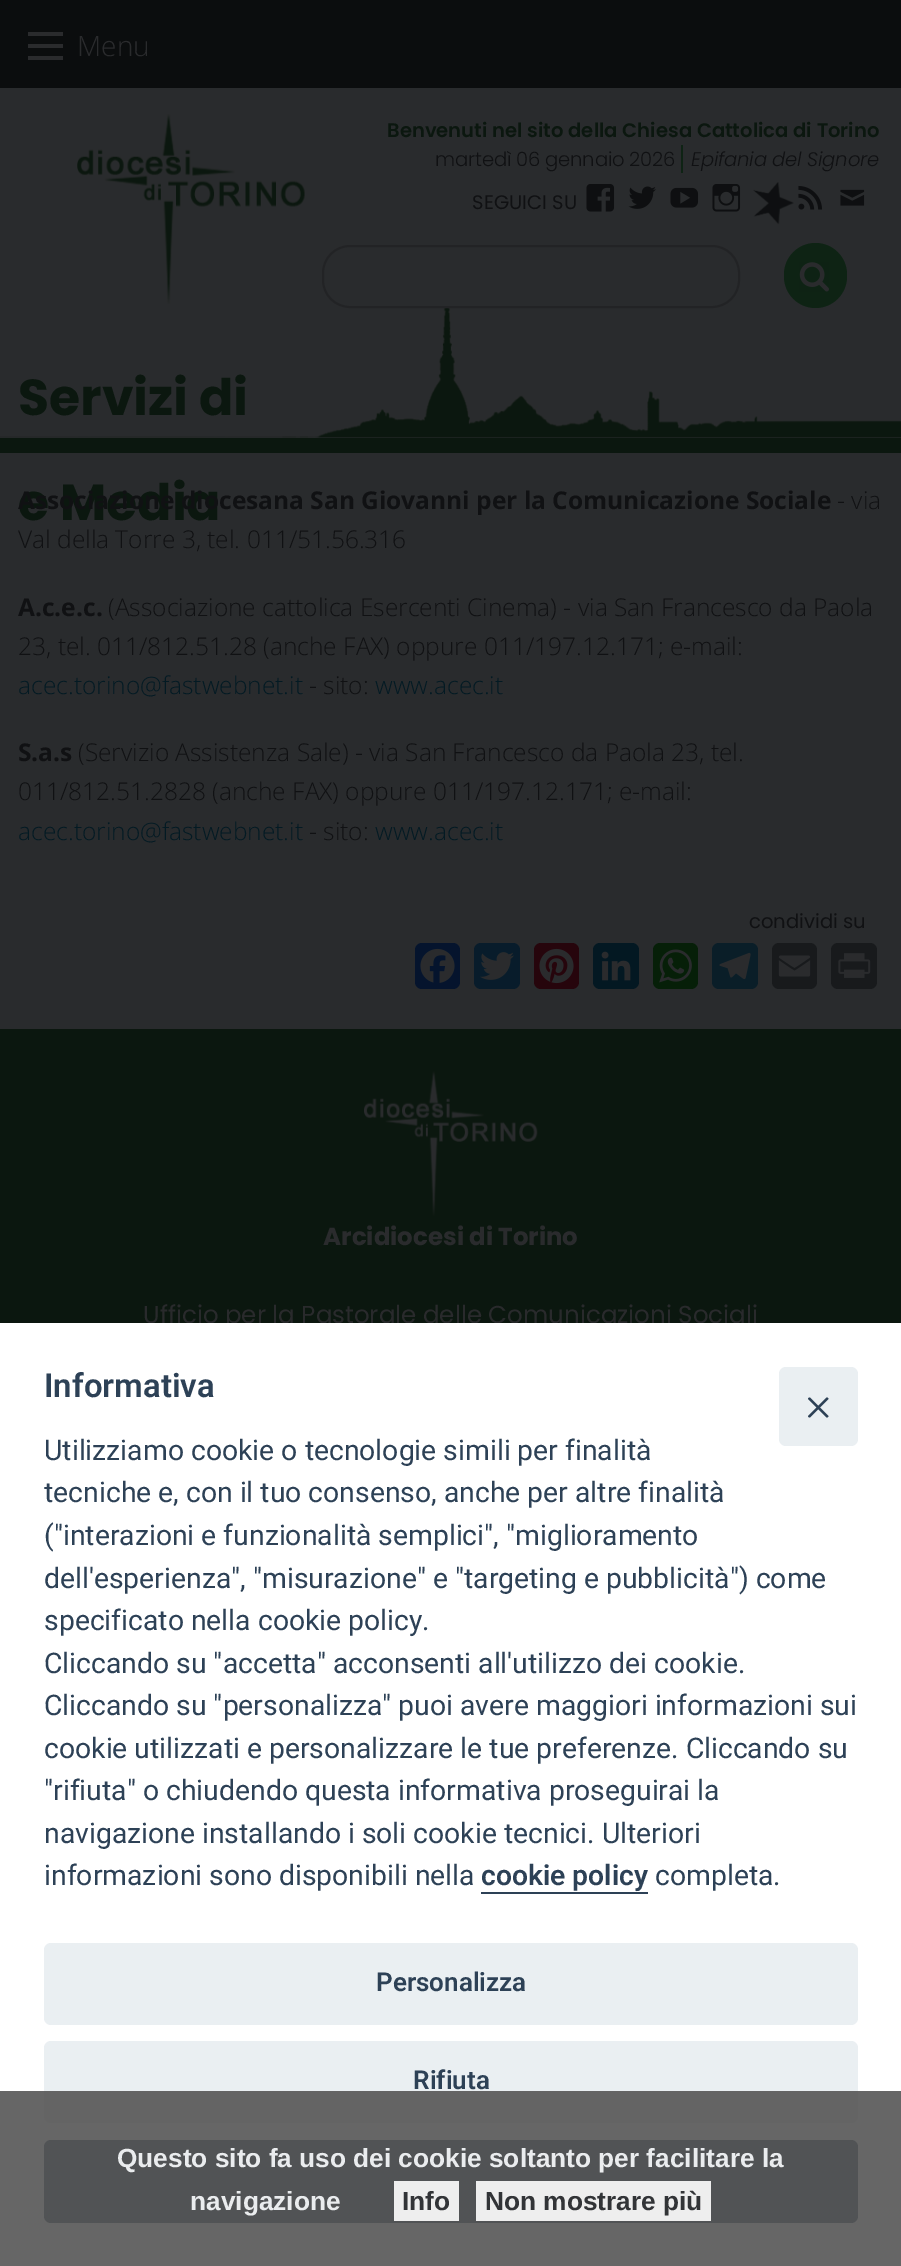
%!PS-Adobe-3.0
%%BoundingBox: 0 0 901 2266
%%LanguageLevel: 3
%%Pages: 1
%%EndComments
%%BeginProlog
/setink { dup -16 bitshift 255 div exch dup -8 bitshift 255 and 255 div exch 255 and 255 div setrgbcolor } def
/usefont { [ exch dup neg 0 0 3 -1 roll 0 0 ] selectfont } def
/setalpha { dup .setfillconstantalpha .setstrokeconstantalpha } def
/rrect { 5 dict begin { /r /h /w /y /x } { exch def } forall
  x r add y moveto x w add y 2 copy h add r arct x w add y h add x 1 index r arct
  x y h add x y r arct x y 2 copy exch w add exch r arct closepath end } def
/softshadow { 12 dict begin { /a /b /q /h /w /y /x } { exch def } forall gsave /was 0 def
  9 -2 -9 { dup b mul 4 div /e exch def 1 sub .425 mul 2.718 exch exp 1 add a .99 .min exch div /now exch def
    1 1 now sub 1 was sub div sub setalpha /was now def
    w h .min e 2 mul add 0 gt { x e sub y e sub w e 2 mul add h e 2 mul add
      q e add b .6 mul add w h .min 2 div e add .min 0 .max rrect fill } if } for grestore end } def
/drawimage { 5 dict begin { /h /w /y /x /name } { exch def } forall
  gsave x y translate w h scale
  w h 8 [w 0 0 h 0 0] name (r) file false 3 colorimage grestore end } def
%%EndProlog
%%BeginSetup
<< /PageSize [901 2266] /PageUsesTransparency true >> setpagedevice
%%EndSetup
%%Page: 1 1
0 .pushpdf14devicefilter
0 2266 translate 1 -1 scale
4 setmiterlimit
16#292B2D setink
0 0 901 2266 rectfill
[
    [0 0 901 88 16#0B0D0E]
    [28 56 35 4 16#2A2B2D]
    [28 44 35 4 16#2A2B2D]
    [28 32 35 4 16#2A2B2D]
] { aload pop setink rectfill } forall
/OpenSans-Light 28 usefont
77 56 moveto (Menu) show
(img1.raw) 0 308 901 130 drawimage
/Poppins-SemiBold 19.6 usefont
16#0B170F setink
387 137 moveto (Benvenuti nel sito della Chiesa Cattolica di Torino) show
/Poppins-Light 19.6 usefont
16#101113 setink
435 166 moveto -0.2 0 (martedì 06 gennaio 2026) ashow
/Poppins-LightItalic 19.6 usefont
691 166 moveto -0.2 0 (Epifania del Signore) ashow
16#0E2314 setink
681 145 2 28 rectfill
/Poppins-Regular 19.6 usefont
16#101113 setink
472 209 moveto (SEGUICI SU) show
(img2.raw) 586 184 29 28 drawimage
(img3.raw) 628 186 28 23 drawimage
(img4.raw) 670 187 29 21 drawimage
(img5.raw) 712 184 29 28 drawimage
(img6.raw) 753 182 41 43 drawimage
(img7.raw) 798 185 25 25 drawimage
(img8.raw) 840 189 25 17 drawimage
16#222325 setink
2 setlinewidth
323 246 416 61 27 rrect stroke
16#0E2314 setink
784 243 63 65 31.5 rrect fill
(img9.raw) 799 262 30 30 drawimage
(img10.raw) 77 114 228 190 drawimage
/Poppins-Bold 50.5 usefont
16#0B170F setink
18 415 moveto (Servizi di) show
18 520 moveto (e Media) show
0 438 901 15 rectfill
/OpenSans-Bold 24.5 usefont
16#101113 setink
18 509 moveto (Associazione diocesana San Giovanni per la Comunicazione Sociale) show
/OpenSans-Light 24.5 usefont
837 509 moveto (- via) show
18 548 moveto (Val della Torre 3, tel. 011/51.56.316) show
/OpenSans-Bold 24.5 usefont
18 616 moveto (A.c.e.c.) show
/OpenSans-Light 24.5 usefont
108 616 moveto (\(Associazione cattolica Esercenti Cinema\) - via San Francesco da Paola) show
18 655 moveto (23, tel. 011/812.51.28 \(anche FAX\) oppure 011/197.12.171; e-mail:) show
16#031A23 setink
18 694 moveto (acec.torino@fastwebnet.it) show
16#101113 setink
309 694 moveto (- sito:) show
16#031A23 setink
375 694 moveto (www.acec.it) show
/OpenSans-Bold 24.5 usefont
16#101113 setink
18 761 moveto (S.a.s) show
/OpenSans-Light 24.5 usefont
78 761 moveto (\(Servizio Assistenza Sale\) - via San Francesco da Paola 23, tel.) show
18 800 moveto (011/812.51.2828 \(anche FAX\) oppure 011/197.12.171; e-mail:) show
16#031A23 setink
18 840 moveto (acec.torino@fastwebnet.it) show
16#101113 setink
309 840 moveto (- sito:) show
16#031A23 setink
375 840 moveto (www.acec.it) show
/Poppins-Regular 19.6 usefont
16#101113 setink
749 928 moveto (condividi su) show
16#05142D setink
415 943 45 46 7 rrect fill
(img11.raw) 420 948 35 35 drawimage
16#081C2B setink
474 943 46 46 7 rrect fill
(img12.raw) 480 952 34 28 drawimage
16#26050C setink
534 943 45 46 7 rrect fill
(img13.raw) 539 948 35 36 drawimage
16#031822 setink
593 943 46 46 7 rrect fill
(img14.raw) 601 951 30 30 drawimage
16#061F08 setink
653 943 45 46 7 rrect fill
(img15.raw) 659 949 33 34 drawimage
16#0A1E28 setink
712 943 46 46 7 rrect fill
(img16.raw) 719 952 32 28 drawimage
16#181A1C setink
772 943 45 46 7 rrect fill
(img17.raw) 778 955 33 22 drawimage
831 943 46 46 7 rrect fill
(img18.raw) 838 953 33 25 drawimage
16#0B170F setink
0 1029 901 294 rectfill
(img19.raw) 364 1071 174 145 drawimage
/Poppins-Bold 24.5 usefont
16#2A2B2D setink
323 1245 moveto (Arcidiocesi di Torino) show
/Poppins-Regular 24.5 usefont
143 1323 moveto (Ufficio per la Pastorale delle Comunicazioni Sociali) show
16#020203 setink
0 1342 901 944 0 29.5 0.28 softshadow
16#FFFFFF setink
0 1323 901 943 rectfill
16#EAEFF2 setink
779 1367 79 79 7 rrect fill
16#2D4156 setink
828 1398 moveto 828.5 1398.5 828.5 1399 828 1399.5 curveto 810.5 1417 lineto 810 1417.5 809 1417.5 808.5 1417 curveto 808 1416.5 808 1416 808.5 1415.5 curveto 826 1398 lineto 826.5 1397.5 827.5 1397.5 828 1398 curveto closepath fill
808.5 1398 moveto 809 1397.5 810 1397.5 810.5 1398 curveto 828 1415.5 lineto 828.5 1416 828.5 1416.5 828 1417 curveto 827.5 1417.5 826.5 1417.5 826 1417 curveto 808.5 1399.5 lineto 808 1399 808 1398.5 808.5 1398 curveto closepath fill
/Roboto-SemiBold 33 usefont
44 1397 moveto (Informativa) show
/Roboto-Regular 28.35 usefont
[
    [(Utilizziamo cookie o tecnologie simili per finalità) 44 1460]
    [(tecniche e, con il tuo consenso, anche per altre finalità) 44 1502]
    [(\("interazioni e funzionalità semplici", "miglioramento) 44 1545]
    [(dell'esperienza", "misurazione" e "targeting e pubblicità"\) come) 44 1588]
    [(specificato nella cookie policy.) 44 1630]
    [(Cliccando su "accetta" acconsenti all'utilizzo dei cookie.) 44 1673]
    [(Cliccando su "personalizza" puoi avere maggiori informazioni sui) 44 1715]
    [(cookie utilizzati e personalizzare le tue preferenze. Cliccando su) 44 1758]
    [("rifiuta" o chiudendo questa informativa proseguirai la) 44 1800]
    [(navigazione installando i soli cookie tecnici. Ulteriori) 44 1843]
    [(informazioni sono disponibili nella) 44 1885]
] { aload pop moveto show } forall
/Roboto-SemiBold 28.35 usefont
481 1885 moveto (cookie policy) show
481 1892 167 2 rectfill
/Roboto-Regular 28.35 usefont
655 1885 moveto (completa.) show
16#EAEFF2 setink
44 1943 814 82 7 rrect fill
/Roboto-SemiBold 26 usefont
16#2D4156 setink
376 1991 moveto (Personalizza) show
16#EAEFF2 setink
44 2041 814 82 7 rrect fill
16#2D4156 setink
413 2089 moveto (Rifiuta) show
44 2140 814 83 7 rrect fill
0.9 setalpha
16#555555 setink
0 2091 901 175 rectfill
/LiberationSans-Bold 26.25 usefont
1 setalpha
16#EAECEE setink
117 2167 moveto (Questo sito fa uso dei cookie soltanto per facilitare la) show
190 2210 moveto (navigazione) show
0.9 setalpha
16#FFFFFF setink
394 2181 65 40 rectfill
1 setalpha
16#323437 setink
402 2210 moveto (Info) show
0.9 setalpha
16#FFFFFF setink
476 2181 235 40 rectfill
1 setalpha
16#323437 setink
485 2210 moveto (Non mostrare più) show
.poppdf14devicefilter showpage
%%EOF
